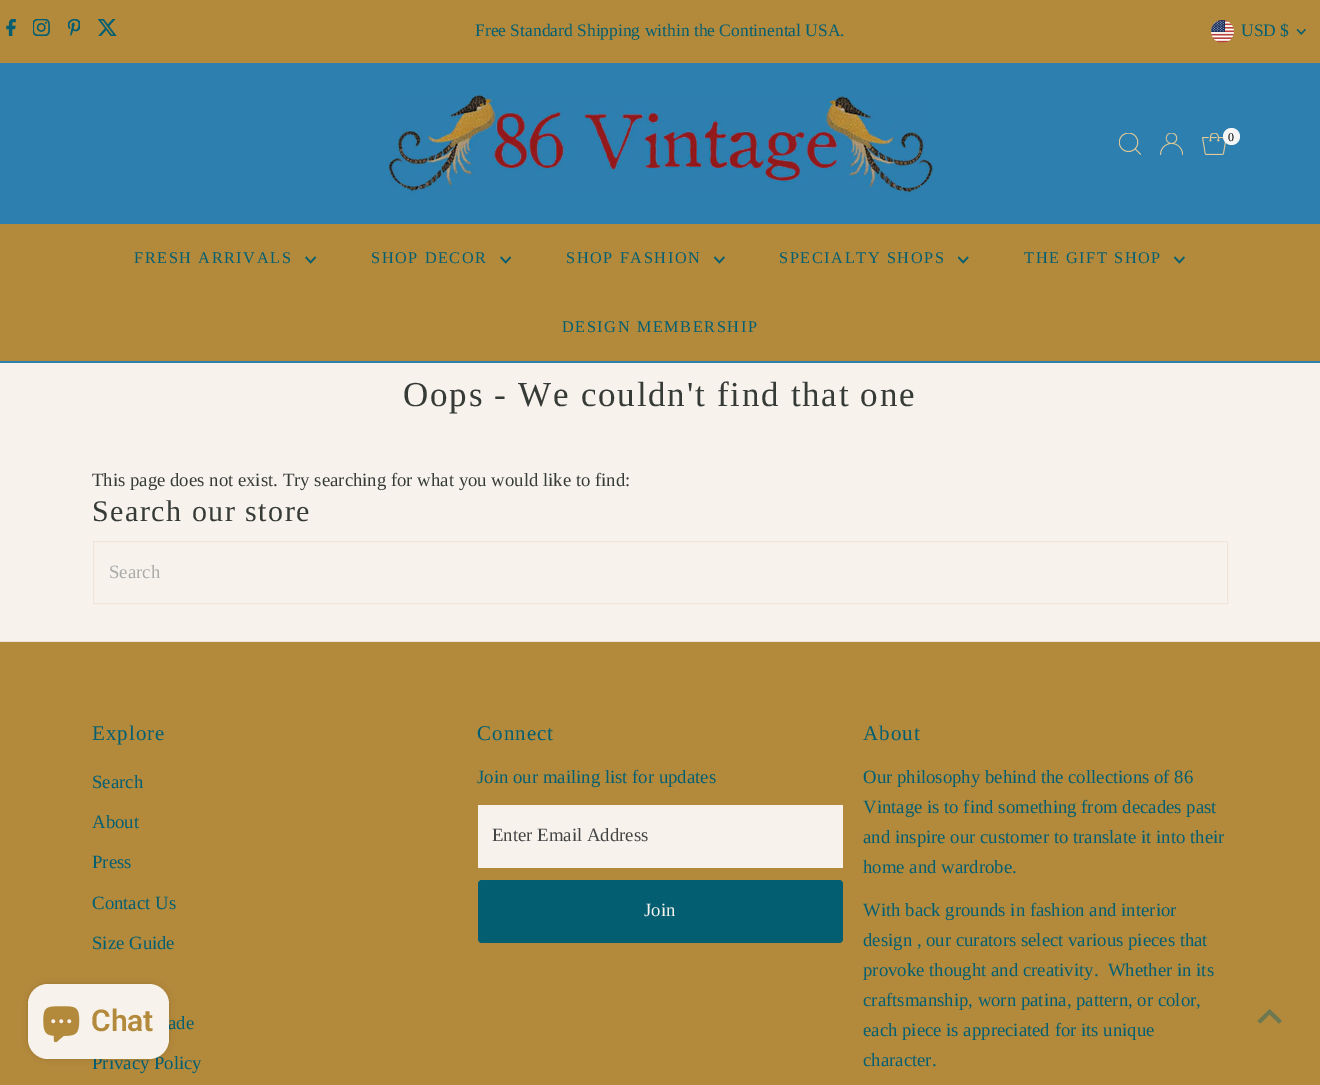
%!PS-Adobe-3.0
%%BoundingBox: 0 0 1320 1085
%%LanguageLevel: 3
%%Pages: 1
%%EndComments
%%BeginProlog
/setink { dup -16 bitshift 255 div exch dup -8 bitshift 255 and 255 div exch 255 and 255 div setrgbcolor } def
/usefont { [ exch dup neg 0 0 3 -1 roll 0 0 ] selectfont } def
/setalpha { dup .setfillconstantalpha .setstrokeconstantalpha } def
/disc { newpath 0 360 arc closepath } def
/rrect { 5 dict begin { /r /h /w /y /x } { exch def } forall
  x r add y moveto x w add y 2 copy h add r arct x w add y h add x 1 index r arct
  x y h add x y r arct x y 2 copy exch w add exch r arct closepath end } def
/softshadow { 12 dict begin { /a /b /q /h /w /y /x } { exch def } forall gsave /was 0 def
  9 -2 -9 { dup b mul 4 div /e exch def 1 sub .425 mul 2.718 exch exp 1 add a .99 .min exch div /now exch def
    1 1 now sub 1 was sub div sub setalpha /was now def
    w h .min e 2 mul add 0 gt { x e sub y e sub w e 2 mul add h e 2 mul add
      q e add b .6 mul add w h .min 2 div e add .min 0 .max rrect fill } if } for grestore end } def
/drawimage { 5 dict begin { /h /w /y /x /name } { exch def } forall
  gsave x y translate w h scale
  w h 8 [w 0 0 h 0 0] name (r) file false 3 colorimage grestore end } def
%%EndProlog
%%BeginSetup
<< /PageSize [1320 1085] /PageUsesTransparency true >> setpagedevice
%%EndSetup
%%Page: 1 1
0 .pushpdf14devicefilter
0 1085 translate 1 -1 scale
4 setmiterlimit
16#F7F3EC setink
0 0 1320 1085 rectfill
16#B38A3B setink
0 0 1320 63 rectfill
(img1.raw) 6 19 10 17 drawimage
(img2.raw) 33 19 17 17 drawimage
(img3.raw) 68 19 12 17 drawimage
(img4.raw) 98 19 19 17 drawimage
/LiberationSerif-Regular 17.5 usefont
16#035E71 setink
475 36 moveto (Free Standard Shipping within the Continental USA.) show
(img5.raw) 1211 20 23 23 drawimage
1241 36 moveto (USD $) show
(img6.raw) 1296 29 10 6 drawimage
16#2C7FAE setink
0 63 1320 300 rectfill
(img7.raw) 386 94 548 100 drawimage
(img8.raw) 1119 133 22 22 drawimage
(img9.raw) 1160 133 23 22 drawimage
(img10.raw) 1202 133 24 22 drawimage
16#F5F5F5 setink
1231.5 136.5 8.5 disc fill
/LiberationSerif-Regular 12 usefont
16#000000 setink
1228 141 moveto (0) show
16#B38A3B setink
0 224 1320 137 rectfill
/LiberationSerif-Regular 16.25 usefont
16#035E71 setink
134 263 moveto 1.6 0 (FRESH ARRIVALS) ashow
(img11.raw) 305 256 11 8 drawimage
371 263 moveto 1.6 0 (SHOP DECOR) ashow
(img11.raw) 500 256 11 8 drawimage
566 263 moveto 1.6 0 (SHOP FASHION) ashow
(img12.raw) 714 256 11 8 drawimage
779 263 moveto 1.6 0 (SPECIALTY SHOPS) ashow
(img13.raw) 958 256 11 8 drawimage
1024 263 moveto 1.6 0 (THE GIFT SHOP) ashow
(img12.raw) 1174 256 11 8 drawimage
562 332 moveto 1.6 0 (DESIGN MEMBERSHIP) ashow
/LiberationSerif-Regular 35 usefont
16#373B37 setink
403 406 moveto 1.75 0 (Oops - We couldn't find that one) ashow
/LiberationSerif-Regular 18.75 usefont
92 486 moveto (This page does not exist. Try searching for what you would like to find:) show
/LiberationSerif-Regular 30 usefont
92 521 moveto 1.5 0 (Search our store) ashow
16#EFE5DA setink
93.5 541.5 1134 62 rectstroke
/LiberationSerif-Regular 18.75 usefont
16#AAAAAA setink
109 578 moveto (Search) show
16#B38A3B setink
0 642 1320 443 rectfill
16#EFE5DA setink
0 641 1320 1 rectfill
/LiberationSerif-Regular 21 usefont
16#035E71 setink
92 740 moveto 1 0 (Explore) ashow
/LiberationSerif-Regular 18.75 usefont
[
    [(Search) 92 788]
    [(About) 92 828]
    [(Press) 92 868]
    [(Contact Us) 92 909]
    [(Size Guide) 92 949]
    [(ade) 168 1029]
    [(Privacy Policy) 92 1069]
] { aload pop moveto show } forall
/LiberationSerif-Regular 21 usefont
477 740 moveto 1 0 (Connect) ashow
/LiberationSerif-Regular 18.75 usefont
477 783 moveto (Join our mailing list for updates) show
16#F7F3EC setink
478 805 365 63 rectfill
16#444444 setink
492 841 moveto (Enter Email Address) show
16#035E71 setink
478 880 365 63 4 rrect fill
16#F7F3EC setink
644 916 moveto (Join) show
/LiberationSerif-Regular 21 usefont
16#035E71 setink
863 740 moveto 1 0 (About) ashow
/LiberationSerif-Regular 18.75 usefont
[
    [(Our philosophy behind the collections of 86) 863 783]
    [(Vintage is to find something from decades past) 863 813]
    [(and inspire our customer to translate it into their) 863 843]
    [(home and wardrobe.) 863 873]
    [(With back grounds in fashion and interior) 863 916]
    [(design , our curators select various pieces that) 863 946]
    [(provoke thought and creativity.  Whether in its) 863 976]
    [(craftsmanship, worn patina, pattern, or color,) 863 1006]
    [(each piece is appreciated for its unique) 863 1036]
    [(character.) 863 1066]
] { aload pop moveto show } forall
16#6D7851 setink
1269.5 1009 moveto 1257.5 1021 lineto 1260.5 1023.5 lineto 1269.5 1014.5 lineto 1279 1023.5 lineto 1282 1021 lineto closepath fill
16#000000 setink
28 984 141 75 20 3 0.15 softshadow
16#F7F3EC setink
28 984 141 75 20 rrect fill
(img14.raw) 43 1006 37 37 drawimage
/Roboto-SemiBold 30 usefont
16#B38A3B setink
91 1031 moveto (Chat) show
.poppdf14devicefilter showpage
%%EOF
